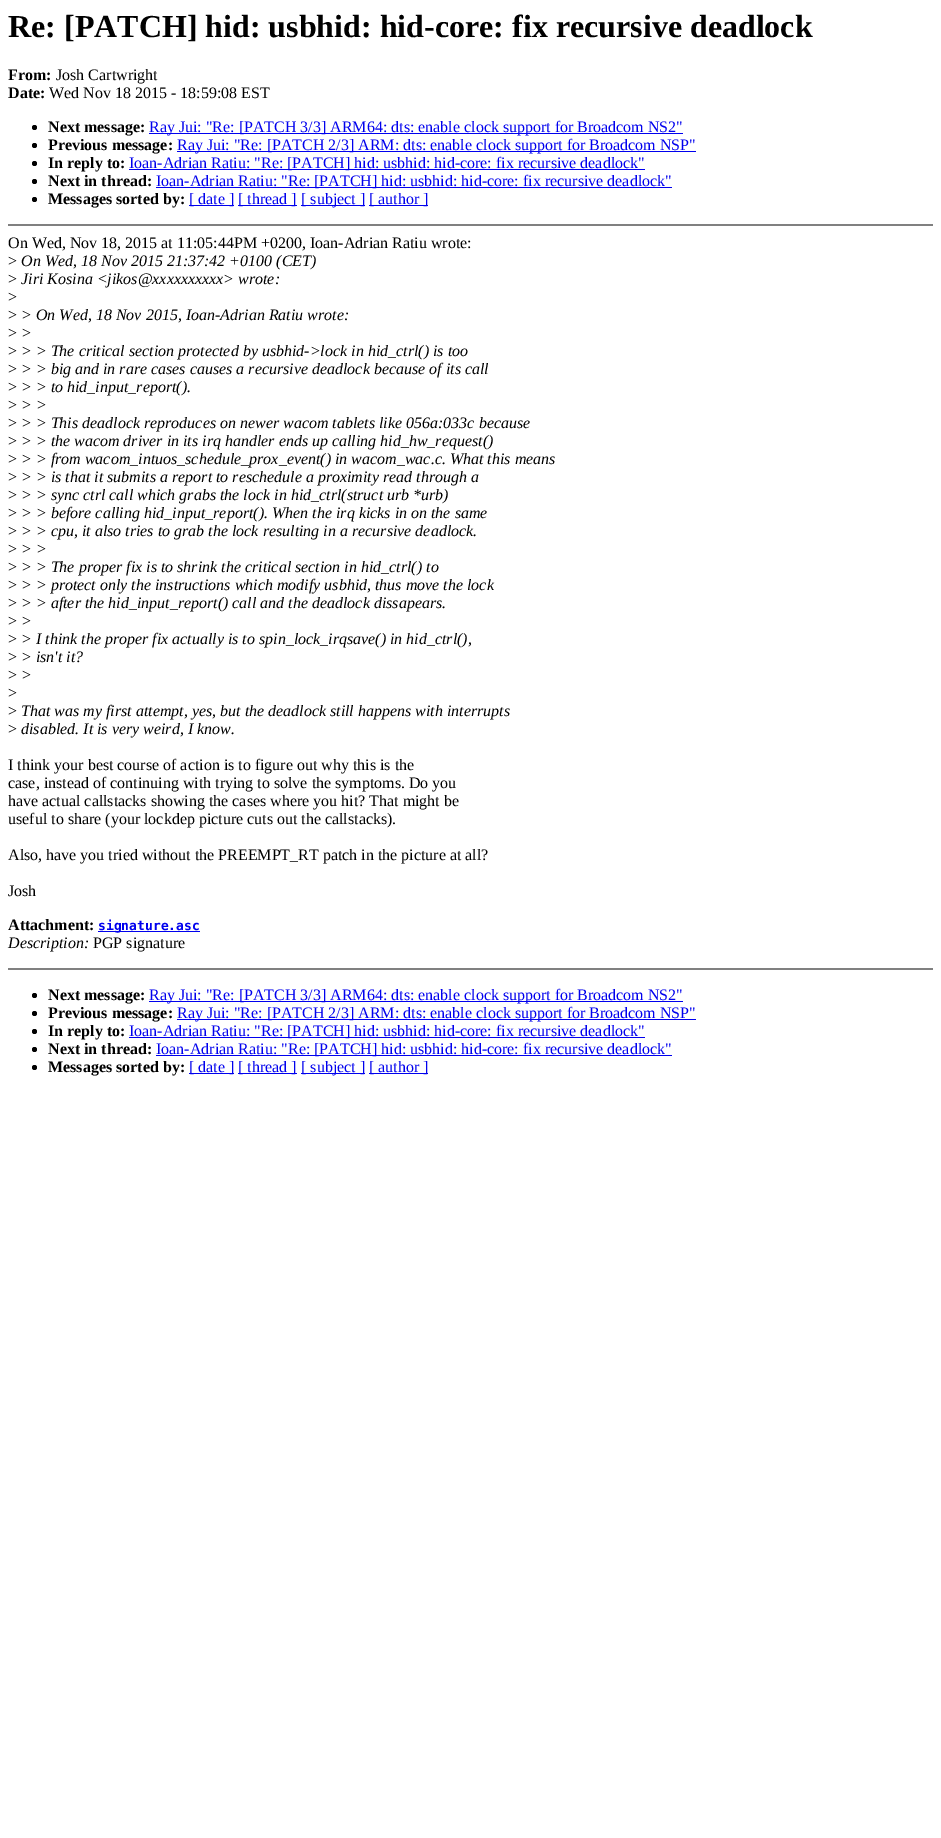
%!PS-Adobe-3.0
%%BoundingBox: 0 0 941 1838
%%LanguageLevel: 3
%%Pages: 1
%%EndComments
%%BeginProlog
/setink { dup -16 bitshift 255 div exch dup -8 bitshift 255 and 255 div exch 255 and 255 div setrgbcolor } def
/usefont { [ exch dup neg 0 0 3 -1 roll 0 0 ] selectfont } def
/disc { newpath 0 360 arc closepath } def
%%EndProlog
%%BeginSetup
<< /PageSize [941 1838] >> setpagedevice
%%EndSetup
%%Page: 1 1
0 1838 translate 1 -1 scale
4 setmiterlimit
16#FFFFFF setink
0 0 941 1838 rectfill
/LiberationSerif-Bold 32 usefont
16#000000 setink
8 37 moveto (Re: [PATCH] hid: usbhid: hid-core: fix recursive deadlock) show
/LiberationSerif-Bold 16 usefont
8 80 moveto (From:) show
/LiberationSerif-Regular 16 usefont
56 80 moveto (Josh Cartwright) show
/LiberationSerif-Bold 16 usefont
8 98 moveto (Date:) show
/LiberationSerif-Regular 16 usefont
49 98 moveto (Wed Nov 18 2015 - 18:59:08 EST) show
34.5 127.5 2.5 disc fill
/LiberationSerif-Bold 16 usefont
48 132 moveto (Next message:) show
16#0000EE setink
149 133 534 1 rectfill
/LiberationSerif-Regular 16 usefont
149 132 moveto (Ray Jui: "Re: [PATCH 3/3] ARM64: dts: enable clock support for Broadcom NS2") show
16#000000 setink
34.5 145.5 2.5 disc fill
/LiberationSerif-Bold 16 usefont
48 150 moveto (Previous message:) show
16#0000EE setink
177 151 519 1 rectfill
/LiberationSerif-Regular 16 usefont
177 150 moveto (Ray Jui: "Re: [PATCH 2/3] ARM: dts: enable clock support for Broadcom NSP") show
16#000000 setink
34.5 163.5 2.5 disc fill
/LiberationSerif-Bold 16 usefont
48 168 moveto (In reply to:) show
16#0000EE setink
129 169 516 1 rectfill
/LiberationSerif-Regular 16 usefont
129 168 moveto (Ioan-Adrian Ratiu: "Re: [PATCH] hid: usbhid: hid-core: fix recursive deadlock") show
16#000000 setink
34.5 181.5 2.5 disc fill
/LiberationSerif-Bold 16 usefont
48 186 moveto (Next in thread:) show
16#0000EE setink
156 187 516 1 rectfill
/LiberationSerif-Regular 16 usefont
156 186 moveto (Ioan-Adrian Ratiu: "Re: [PATCH] hid: usbhid: hid-core: fix recursive deadlock") show
16#000000 setink
34.5 199.5 2.5 disc fill
/LiberationSerif-Bold 16 usefont
48 204 moveto (Messages sorted by:) show
16#0000EE setink
189 205 45 1 rectfill
/LiberationSerif-Regular 16 usefont
189 204 moveto ([ date ]) show
238 205 59 1 rectfill
238 204 moveto ([ thread ]) show
301 205 64 1 rectfill
301 204 moveto ([ subject ]) show
369 205 59 1 rectfill
369 204 moveto ([ author ]) show
16#808080 setink
8 224 925 2 rectfill
16#000000 setink
8 248 moveto (On Wed, Nov 18, 2015 at 11:05:44PM +0200, Ioan-Adrian Ratiu wrote:) show
8 266 moveto (>) show
/LiberationSerif-Italic 16 usefont
21 266 moveto (On Wed, 18 Nov 2015 21:37:42 +0100 \(CET\)) show
/LiberationSerif-Regular 16 usefont
8 284 moveto (>) show
/LiberationSerif-Italic 16 usefont
21 284 moveto (Jiri Kosina <jikos@xxxxxxxxxx> wrote:) show
/LiberationSerif-Regular 16 usefont
8 302 moveto (>) show
8 320 moveto (>) show
/LiberationSerif-Italic 16 usefont
21 320 moveto (> On Wed, 18 Nov 2015, Ioan-Adrian Ratiu wrote:) show
/LiberationSerif-Regular 16 usefont
8 338 moveto (>) show
/LiberationSerif-Italic 16 usefont
21 338 moveto (>) show
/LiberationSerif-Regular 16 usefont
8 356 moveto (>) show
/LiberationSerif-Italic 16 usefont
21 356 moveto (> > The critical section protected by usbhid->lock in hid_ctrl\(\) is too) show
/LiberationSerif-Regular 16 usefont
8 374 moveto (>) show
/LiberationSerif-Italic 16 usefont
21 374 moveto (> > big and in rare cases causes a recursive deadlock because of its call) show
/LiberationSerif-Regular 16 usefont
8 392 moveto (>) show
/LiberationSerif-Italic 16 usefont
21 392 moveto (> > to hid_input_report\(\).) show
/LiberationSerif-Regular 16 usefont
8 410 moveto (>) show
/LiberationSerif-Italic 16 usefont
21 410 moveto (> >) show
/LiberationSerif-Regular 16 usefont
8 428 moveto (>) show
/LiberationSerif-Italic 16 usefont
21 428 moveto (> > This deadlock reproduces on newer wacom tablets like 056a:033c because) show
/LiberationSerif-Regular 16 usefont
8 446 moveto (>) show
/LiberationSerif-Italic 16 usefont
21 446 moveto (> > the wacom driver in its irq handler ends up calling hid_hw_request\(\)) show
/LiberationSerif-Regular 16 usefont
8 464 moveto (>) show
/LiberationSerif-Italic 16 usefont
21 464 moveto (> > from wacom_intuos_schedule_prox_event\(\) in wacom_wac.c. What this means) show
/LiberationSerif-Regular 16 usefont
8 482 moveto (>) show
/LiberationSerif-Italic 16 usefont
21 482 moveto (> > is that it submits a report to reschedule a proximity read through a) show
/LiberationSerif-Regular 16 usefont
8 500 moveto (>) show
/LiberationSerif-Italic 16 usefont
21 500 moveto (> > sync ctrl call which grabs the lock in hid_ctrl\(struct urb *urb\)) show
/LiberationSerif-Regular 16 usefont
8 518 moveto (>) show
/LiberationSerif-Italic 16 usefont
21 518 moveto (> > before calling hid_input_report\(\). When the irq kicks in on the same) show
/LiberationSerif-Regular 16 usefont
8 536 moveto (>) show
/LiberationSerif-Italic 16 usefont
21 536 moveto (> > cpu, it also tries to grab the lock resulting in a recursive deadlock.) show
/LiberationSerif-Regular 16 usefont
8 554 moveto (>) show
/LiberationSerif-Italic 16 usefont
21 554 moveto (> >) show
/LiberationSerif-Regular 16 usefont
8 572 moveto (>) show
/LiberationSerif-Italic 16 usefont
21 572 moveto (> > The proper fix is to shrink the critical section in hid_ctrl\(\) to) show
/LiberationSerif-Regular 16 usefont
8 590 moveto (>) show
/LiberationSerif-Italic 16 usefont
21 590 moveto (> > protect only the instructions which modify usbhid, thus move the lock) show
/LiberationSerif-Regular 16 usefont
8 608 moveto (>) show
/LiberationSerif-Italic 16 usefont
21 608 moveto (> > after the hid_input_report\(\) call and the deadlock dissapears.) show
/LiberationSerif-Regular 16 usefont
8 626 moveto (>) show
/LiberationSerif-Italic 16 usefont
21 626 moveto (>) show
/LiberationSerif-Regular 16 usefont
8 644 moveto (>) show
/LiberationSerif-Italic 16 usefont
21 644 moveto (> I think the proper fix actually is to spin_lock_irqsave\(\) in hid_ctrl\(\),) show
/LiberationSerif-Regular 16 usefont
8 662 moveto (>) show
/LiberationSerif-Italic 16 usefont
21 662 moveto (> isn't it?) show
/LiberationSerif-Regular 16 usefont
8 680 moveto (>) show
/LiberationSerif-Italic 16 usefont
21 680 moveto (>) show
/LiberationSerif-Regular 16 usefont
8 698 moveto (>) show
8 716 moveto (>) show
/LiberationSerif-Italic 16 usefont
21 716 moveto (That was my first attempt, yes, but the deadlock still happens with interrupts) show
/LiberationSerif-Regular 16 usefont
8 734 moveto (>) show
/LiberationSerif-Italic 16 usefont
21 734 moveto (disabled. It is very weird, I know.) show
/LiberationSerif-Regular 16 usefont
[
    [(I think your best course of action is to figure out why this is the) 8 770]
    [(case, instead of continuing with trying to solve the symptoms. Do you) 8 788]
    [(have actual callstacks showing the cases where you hit? That might be) 8 806]
    [(useful to share \(your lockdep picture cuts out the callstacks\).) 8 824]
    [(Also, have you tried without the PREEMPT_RT patch in the picture at all?) 8 860]
    [(Josh) 8 896]
] { aload pop moveto show } forall
/LiberationSerif-Bold 16 usefont
8 930 moveto (Attachment:) show
16#0000EE setink
98 931 102 1 rectfill
/DejaVuSansMono-Bold 13 usefont
98 930 moveto (signature.asc) show
/LiberationSerif-Italic 16 usefont
16#000000 setink
8 948 moveto (Description:) show
/LiberationSerif-Regular 16 usefont
93 948 moveto (PGP signature) show
16#808080 setink
8 968 925 2 rectfill
16#000000 setink
34.5 995.5 2.5 disc fill
/LiberationSerif-Bold 16 usefont
48 1000 moveto (Next message:) show
16#0000EE setink
149 1001 534 1 rectfill
/LiberationSerif-Regular 16 usefont
149 1000 moveto (Ray Jui: "Re: [PATCH 3/3] ARM64: dts: enable clock support for Broadcom NS2") show
16#000000 setink
34.5 1013.5 2.5 disc fill
/LiberationSerif-Bold 16 usefont
48 1018 moveto (Previous message:) show
16#0000EE setink
177 1019 519 1 rectfill
/LiberationSerif-Regular 16 usefont
177 1018 moveto (Ray Jui: "Re: [PATCH 2/3] ARM: dts: enable clock support for Broadcom NSP") show
16#000000 setink
34.5 1031.5 2.5 disc fill
/LiberationSerif-Bold 16 usefont
48 1036 moveto (In reply to:) show
16#0000EE setink
129 1037 516 1 rectfill
/LiberationSerif-Regular 16 usefont
129 1036 moveto (Ioan-Adrian Ratiu: "Re: [PATCH] hid: usbhid: hid-core: fix recursive deadlock") show
16#000000 setink
34.5 1049.5 2.5 disc fill
/LiberationSerif-Bold 16 usefont
48 1054 moveto (Next in thread:) show
16#0000EE setink
156 1055 516 1 rectfill
/LiberationSerif-Regular 16 usefont
156 1054 moveto (Ioan-Adrian Ratiu: "Re: [PATCH] hid: usbhid: hid-core: fix recursive deadlock") show
16#000000 setink
34.5 1067.5 2.5 disc fill
/LiberationSerif-Bold 16 usefont
48 1072 moveto (Messages sorted by:) show
16#0000EE setink
189 1073 45 1 rectfill
/LiberationSerif-Regular 16 usefont
189 1072 moveto ([ date ]) show
238 1073 59 1 rectfill
238 1072 moveto ([ thread ]) show
301 1073 64 1 rectfill
301 1072 moveto ([ subject ]) show
369 1073 59 1 rectfill
369 1072 moveto ([ author ]) show
showpage
%%EOF
